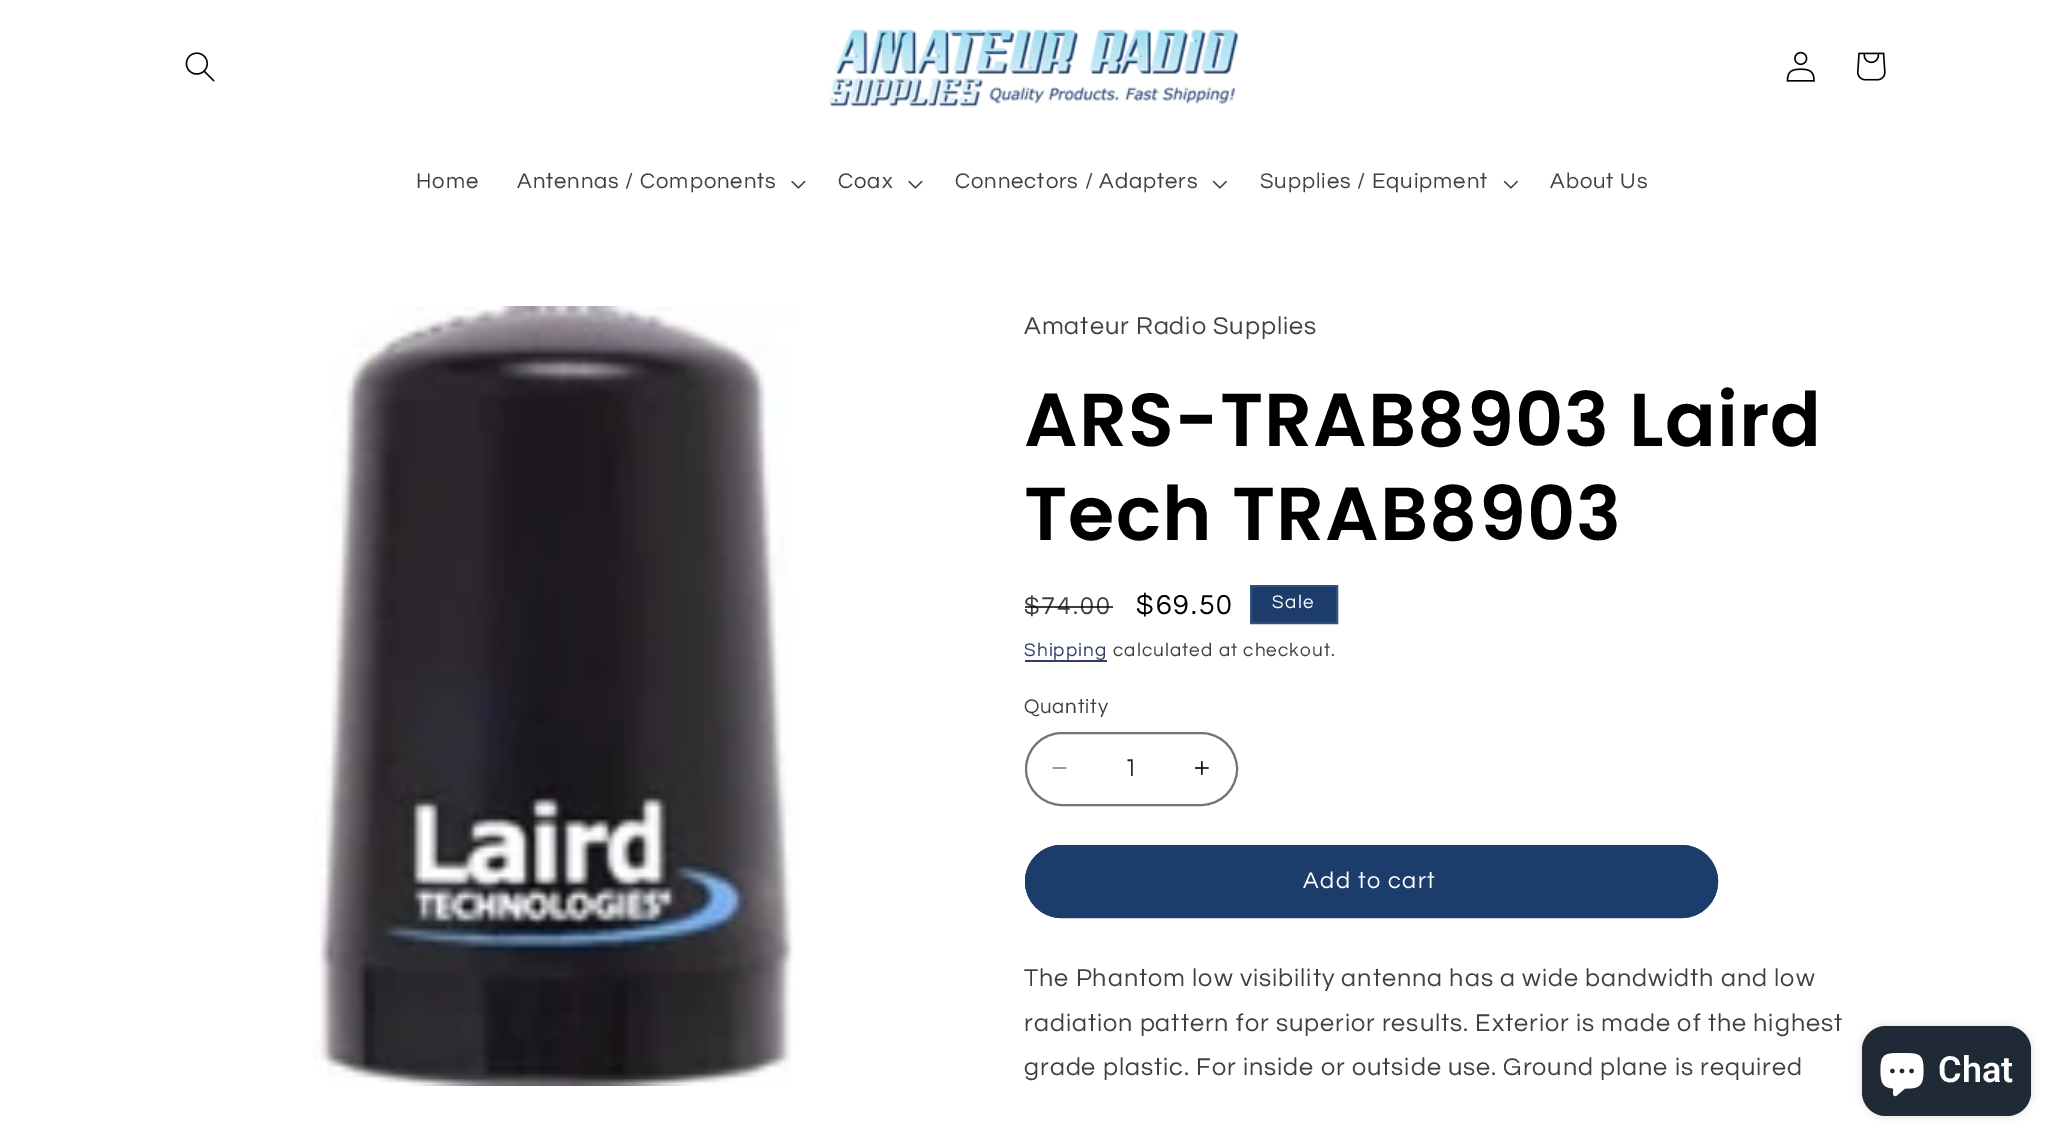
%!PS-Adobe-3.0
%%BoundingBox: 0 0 2063 1147
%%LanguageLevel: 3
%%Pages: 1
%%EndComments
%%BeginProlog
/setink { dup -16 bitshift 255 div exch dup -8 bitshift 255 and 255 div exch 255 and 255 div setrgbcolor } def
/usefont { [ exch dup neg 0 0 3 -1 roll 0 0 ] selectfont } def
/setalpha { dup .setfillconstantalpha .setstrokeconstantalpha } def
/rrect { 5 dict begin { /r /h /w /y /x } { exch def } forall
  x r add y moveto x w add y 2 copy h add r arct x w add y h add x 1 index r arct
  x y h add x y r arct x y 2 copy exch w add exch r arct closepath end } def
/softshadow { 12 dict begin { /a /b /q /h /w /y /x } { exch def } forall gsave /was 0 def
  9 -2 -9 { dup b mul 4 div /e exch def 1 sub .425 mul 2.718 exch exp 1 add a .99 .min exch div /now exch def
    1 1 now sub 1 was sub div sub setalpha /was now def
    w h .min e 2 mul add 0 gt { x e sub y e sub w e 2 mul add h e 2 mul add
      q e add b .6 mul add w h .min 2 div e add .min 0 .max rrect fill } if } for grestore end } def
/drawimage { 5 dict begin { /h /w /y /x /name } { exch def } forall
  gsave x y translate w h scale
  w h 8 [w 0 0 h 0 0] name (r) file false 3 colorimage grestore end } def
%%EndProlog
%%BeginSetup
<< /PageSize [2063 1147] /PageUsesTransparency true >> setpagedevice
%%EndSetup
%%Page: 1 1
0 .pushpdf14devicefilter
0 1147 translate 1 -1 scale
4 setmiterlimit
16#FFFFFF setink
0 0 2063 1147 rectfill
(img1.raw) 185 52 30 30 drawimage
(img2.raw) 828 29 411 78 drawimage
(img3.raw) 1786 51 29 31 drawimage
(img4.raw) 1857 52 29 29 drawimage
/Questrial-Regular 22 usefont
16#404040 setink
416 188 moveto 0.95 0 (Home) ashow
517 188 moveto 0.95 0 (Antennas / Components) ashow
(img5.raw) 791 180 15 9 drawimage
838 188 moveto 0.95 0 (Coax) ashow
(img5.raw) 908 180 15 9 drawimage
955 188 moveto 0.95 0 (Connectors / Adapters) ashow
(img6.raw) 1212 180 15 9 drawimage
1260 188 moveto 0.95 0 (Supplies / Equipment) ashow
(img6.raw) 1503 180 15 9 drawimage
1550 188 moveto 0.95 0 (About Us) ashow
(img7.raw) 313 306 482 780 drawimage
/Questrial-Regular 25.2 usefont
1024 334 moveto 0.95 0 (Amateur Radio Supplies) ashow
/Poppins-SemiBold 75 usefont
16#000000 setink
1024 446 moveto 1.1 0 (ARS-TRAB8903 Laird) ashow
1024 540 moveto 1.1 0 (Tech TRAB8903) ashow
/Questrial-Regular 25.2 usefont
16#404040 setink
1024 614 moveto 2 0 ($74.00) ashow
0.75 setalpha
16#000000 setink
1025 606 88 2 rectfill
/Questrial-Regular 28.5 usefont
1 setalpha
1136 614 moveto 2 0 ($69.50) ashow
16#1C3C6C setink
1251 586 moveto 1337 586 lineto 1337 623 lineto 1251 623 lineto closepath gsave fill grestore
16#33507B setink
2 setlinewidth
stroke
/Questrial-Regular 18.9 usefont
16#FFFFFF setink
1272 608 moveto 1.5 0 (Sale) ashow
16#323D68 setink
1024 656 moveto 1.1 0 (Shipping) ashow
1025 660 82 2 rectfill
16#404040 setink
1113 656 moveto 1.1 0 (calculated at checkout.) ashow
/Questrial-Regular 20.5 usefont
1024 713 moveto 0.75 0 (Quantity) ashow
(img8.raw) 1052 767 15 2 drawimage
(img9.raw) 1194 761 15 14 drawimage
16#737373 setink
1026 733 211 72 36 rrect stroke
/Questrial-Regular 25.2 usefont
16#262626 setink
1124 776 moveto (1) show
16#1C3C6C setink
1025 845 693 73 36.5 rrect fill
1026 846 691 71 35.5 rrect stroke
/Questrial-Regular 23.5 usefont
16#FFFFFF setink
1303 888 moveto 1.5 0 (Add to cart) ashow
/Questrial-Regular 25.2 usefont
16#404040 setink
1024 986 moveto 0.95 0 (The Phantom low visibility antenna has a wide bandwidth and low) ashow
1024 1031 moveto 0.95 0 (radiation pattern for superior results. Exterior is made of the highest) ashow
1024 1075 moveto 0.95 0 (grade plastic. For inside or outside use. Ground plane is required) ashow
16#000000 setink
1862 1026 169 90 24 4 0.15 softshadow
16#202A36 setink
1862 1026 169 90 24 rrect fill
(img10.raw) 1880 1053 44 44 drawimage
/Roboto-SemiBold 36 usefont
16#FFFFFF setink
1938 1082 moveto (Chat) show
.poppdf14devicefilter showpage
%%EOF
